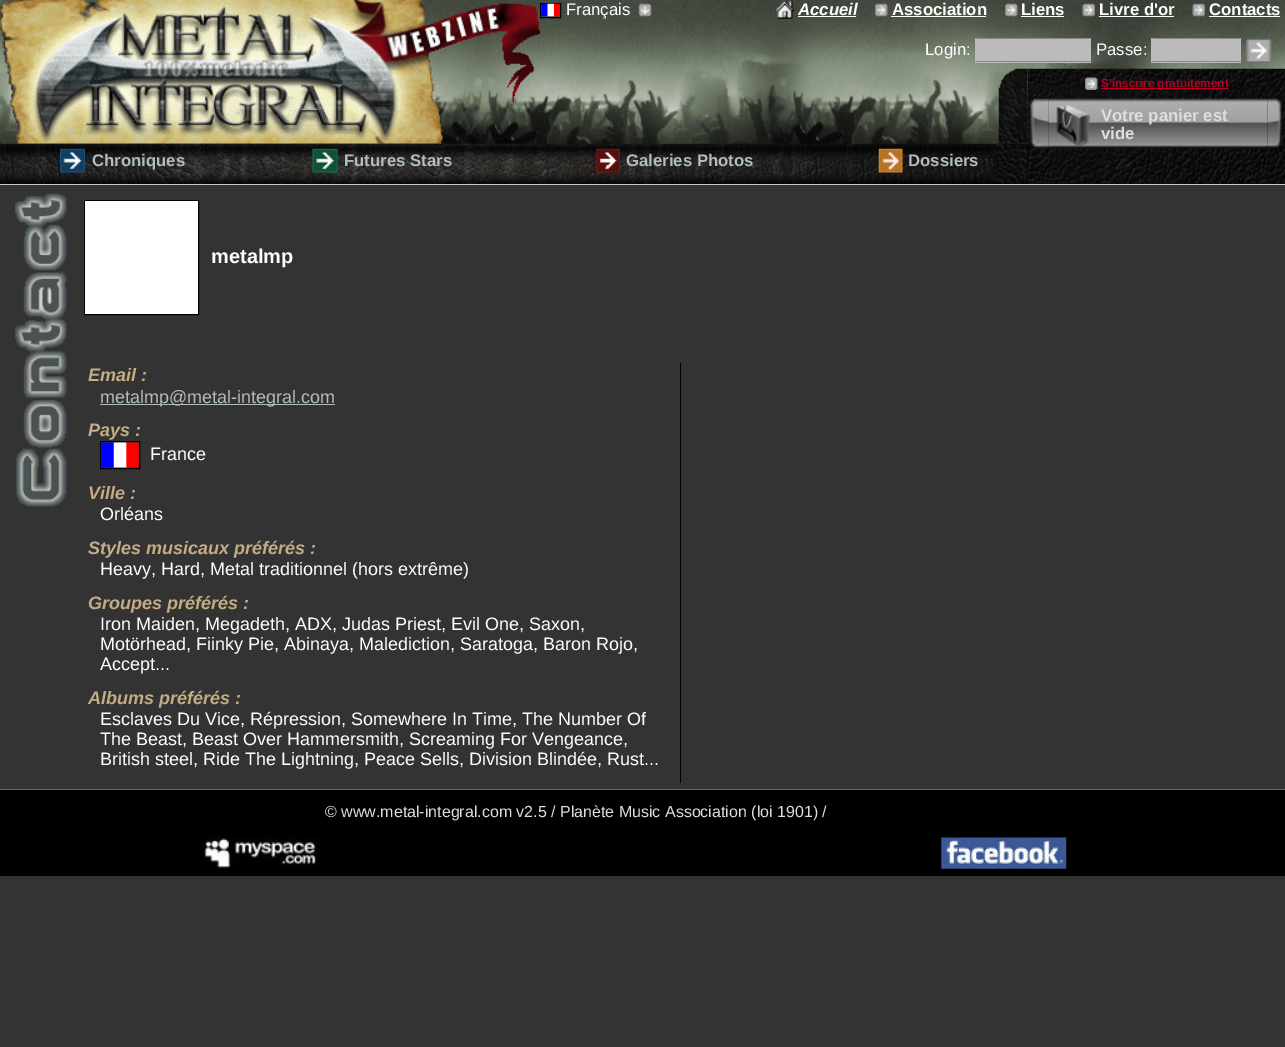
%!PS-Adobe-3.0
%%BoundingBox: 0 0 1285 1047
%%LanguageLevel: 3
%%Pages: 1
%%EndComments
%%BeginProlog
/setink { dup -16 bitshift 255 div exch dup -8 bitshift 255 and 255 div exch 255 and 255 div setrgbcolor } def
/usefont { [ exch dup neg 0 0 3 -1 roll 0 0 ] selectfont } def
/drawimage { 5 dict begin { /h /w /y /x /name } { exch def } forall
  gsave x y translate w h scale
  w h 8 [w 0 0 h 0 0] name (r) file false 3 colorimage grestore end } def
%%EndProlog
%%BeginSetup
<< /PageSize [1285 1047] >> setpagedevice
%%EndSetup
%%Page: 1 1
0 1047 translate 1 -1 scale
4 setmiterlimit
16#333333 setink
0 0 1285 1047 rectfill
(img1.raw) 0 0 1285 144 drawimage
(img2.raw) 0 0 540 144 drawimage
16#000000 setink
540.5 3.5 20 14 rectstroke
(img3.raw) 541 3 19 14 drawimage
/LiberationSans-Regular 16.75 usefont
16#FFFFFF setink
566 15 moveto (Français) show
(img4.raw) 638 3 14 14 drawimage
(img5.raw) 776 1 18 18 drawimage
/LiberationSans-BoldItalic 16.75 usefont
798 15 moveto (Accueil) show
798 16 58 1 rectfill
(img6.raw) 875 3 13 14 drawimage
/LiberationSans-Bold 16.75 usefont
892 15 moveto (Association) show
891 16 95 1 rectfill
(img7.raw) 1005 3 13 14 drawimage
1021 15 moveto (Liens) show
1021 16 43 1 rectfill
(img8.raw) 1082 3 13 14 drawimage
1099 15 moveto (Livre d'or) show
1099 16 75 1 rectfill
(img9.raw) 1192 3 13 14 drawimage
1209 15 moveto (Contacts) show
1209 16 71 1 rectfill
/LiberationSans-Regular 16.75 usefont
925 55 moveto (Login:) show
16#BBBBBB setink
975 38 116 25 rectfill
16#888888 setink
975 38 moveto 1091 38 lineto 1089 39 lineto 978 39 lineto closepath fill
1091 62 moveto 975 62 lineto 978 61 lineto 1089 61 lineto closepath fill
16#FFFFFF setink
1096 55 moveto (Passe:) show
16#BBBBBB setink
1151 38 90 25 rectfill
16#888888 setink
1151 38 moveto 1241 38 lineto 1239 39 lineto 1154 39 lineto closepath fill
1241 62 moveto 1151 62 lineto 1154 61 lineto 1239 61 lineto closepath fill
(img10.raw) 1246 38 26 25 drawimage
(img11.raw) 998 68 30 76 drawimage
(img12.raw) 1027 68 258 116 drawimage
(img13.raw) 1085 77 13 13 drawimage
16#B60027 setink
1101 88 127 1 rectfill
/LiberationSans-Bold 11.75 usefont
1101 87 moveto (S'inscrire gratuitement) show
(img14.raw) 1030 98 19 51 drawimage
(img15.raw) 1048 98 220 51 drawimage
(img16.raw) 1056 105 35 42 drawimage
/LiberationSans-Bold 16.75 usefont
16#DEDEDE setink
1101 121 moveto (Votre panier est) show
1101 139 moveto (vide) show
(img17.raw) 1267 98 15 51 drawimage
16#000000 setink
1027 144 1 40 rectfill
(img18.raw) 0 143 1028 41 drawimage
16#CCCCCC setink
0 184 1285 1 rectfill
(img19.raw) 60 148 25 25 drawimage
16#B2BDC1 setink
92 166 moveto (Chroniques) show
(img20.raw) 312 148 26 25 drawimage
344 166 moveto (Futures Stars) show
(img21.raw) 596 148 24 25 drawimage
626 166 moveto (Galeries Photos) show
(img22.raw) 878 148 25 25 drawimage
908 166 moveto (Dossiers) show
(img23.raw) 15 193 52 314 drawimage
16#000000 setink
84.5 200.5 114 114 rectstroke
16#FFFFFF setink
85 201 113 113 rectfill
/LiberationSans-Bold 20 usefont
211 263 moveto (metalmp) show
16#000000 setink
680 363 1 420 rectfill
/LiberationSans-BoldItalic 18 usefont
16#C4AD84 setink
88 381 moveto (Email :) show
16#B2BDC1 setink
100 404 235 1 rectfill
/LiberationSans-Regular 18 usefont
100 403 moveto (metalmp@metal-integral.com) show
/LiberationSans-BoldItalic 18 usefont
16#C4AD84 setink
88 436 moveto (Pays :) show
16#000000 setink
100.5 441.5 39 27 rectstroke
(img24.raw) 101 442 38 26 drawimage
/LiberationSans-Regular 18 usefont
16#FFFFFF setink
150 460 moveto (France) show
/LiberationSans-BoldItalic 18 usefont
16#C4AD84 setink
88 499 moveto (Ville :) show
/LiberationSans-Regular 18 usefont
16#FFFFFF setink
100 520 moveto (Orléans) show
/LiberationSans-BoldItalic 18 usefont
16#C4AD84 setink
88 554 moveto (Styles musicaux préférés :) show
/LiberationSans-Regular 18 usefont
16#FFFFFF setink
100 575 moveto (Heavy, Hard, Metal traditionnel \(hors extrême\)) show
/LiberationSans-BoldItalic 18 usefont
16#C4AD84 setink
88 609 moveto (Groupes préférés :) show
/LiberationSans-Regular 18 usefont
16#FFFFFF setink
[
    [(Iron Maiden, Megadeth, ADX, Judas Priest, Evil One, Saxon,) 100 630]
    [(Motörhead, Fiinky Pie, Abinaya, Malediction, Saratoga, Baron Rojo,) 100 650]
    [(Accept...) 100 670]
] { aload pop moveto show } forall
/LiberationSans-BoldItalic 18 usefont
16#C4AD84 setink
88 704 moveto (Albums préférés :) show
/LiberationSans-Regular 18 usefont
16#FFFFFF setink
[
    [(Esclaves Du Vice, Répression, Somewhere In Time, The Number Of) 100 725]
    [(The Beast, Beast Over Hammersmith, Screaming For Vengeance,) 100 745]
    [(British steel, Ride The Lightning, Peace Sells, Division Blindée, Rust...) 100 765]
] { aload pop moveto show } forall
16#000000 setink
0 790 1285 86 rectfill
16#666666 setink
0 789 1285 1 rectfill
/LiberationSans-Regular 16 usefont
16#DEDEDE setink
325 817 moveto (© www.metal-integral.com v2.5 / Planète Music Association \(loi 1901\) /) show
(img25.raw) 202 837 116 31 drawimage
(img26.raw) 941 837 126 32 drawimage
showpage
%%EOF
